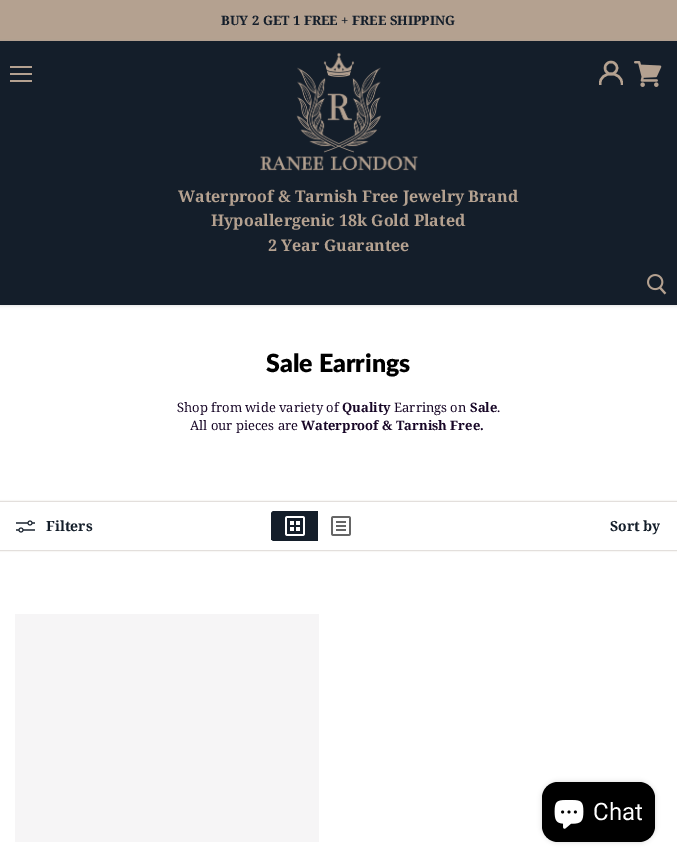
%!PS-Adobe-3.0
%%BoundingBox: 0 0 677 863
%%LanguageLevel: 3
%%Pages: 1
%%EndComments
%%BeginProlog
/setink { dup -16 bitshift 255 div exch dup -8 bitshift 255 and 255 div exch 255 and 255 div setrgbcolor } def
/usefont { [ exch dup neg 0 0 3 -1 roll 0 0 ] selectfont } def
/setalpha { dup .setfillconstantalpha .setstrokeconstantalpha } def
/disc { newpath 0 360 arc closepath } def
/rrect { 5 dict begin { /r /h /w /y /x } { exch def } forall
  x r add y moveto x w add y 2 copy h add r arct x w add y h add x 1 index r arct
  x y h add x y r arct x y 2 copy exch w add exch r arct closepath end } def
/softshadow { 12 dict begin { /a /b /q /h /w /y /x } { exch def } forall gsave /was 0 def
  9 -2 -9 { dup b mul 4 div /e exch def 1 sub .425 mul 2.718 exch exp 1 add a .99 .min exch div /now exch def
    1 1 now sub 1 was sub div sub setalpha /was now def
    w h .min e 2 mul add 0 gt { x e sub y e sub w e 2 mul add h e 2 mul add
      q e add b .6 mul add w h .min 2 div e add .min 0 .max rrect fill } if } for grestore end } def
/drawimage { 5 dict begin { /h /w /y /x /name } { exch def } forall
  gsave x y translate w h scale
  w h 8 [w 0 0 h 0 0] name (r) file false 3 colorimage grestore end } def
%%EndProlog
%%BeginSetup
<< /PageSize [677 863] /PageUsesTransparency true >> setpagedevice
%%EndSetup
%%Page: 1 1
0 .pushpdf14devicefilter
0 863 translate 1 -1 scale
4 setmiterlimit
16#FFFFFF setink
0 0 677 863 rectfill
16#B4A190 setink
0 0 677 41 rectfill
/NotoSerif-Bold 13 usefont
16#141E2A setink
221 25 moveto (BUY 2 GET 1 FREE + FREE SHIPPING) show
16#808080 setink
0 42 677 264 0 2 0.25 softshadow
[
    [0 41 677 264 16#141E2A]
    [10 66 22 2 16#B4A190]
    [10 73 22 2 16#B4A190]
    [10 80 22 2 16#B4A190]
] { aload pop setink rectfill } forall
(img1.raw) 634 61 28 26 drawimage
gsave
599 61 24 24 rectclip
2.4 setlinewidth
2 setlinecap
600 84 moveto 600 70.5 622 70.5 622 84 curveto stroke
grestore
2.4 setlinewidth
611 68 6 disc stroke
(img2.raw) 260 52 158 119 drawimage
/NotoSerif-Bold 16 usefont
[
    [(Waterproof & Tarnish Free Jewelry Brand) 178 202]
    [(Hypoallergenic 18k Gold Plated) 211 226]
    [(2 Year Guarantee) 268 251]
] { aload pop moveto show } forall
(img3.raw) 647 274 20 21 drawimage
/Lato-ExtraBold 25 usefont
16#000000 setink
266 372 moveto (Sale Earrings) show
/NotoSerif-Regular 13 usefont
16#180727 setink
177 412 moveto (Shop from wide variety of) show
/NotoSerif-Bold 13 usefont
342 412 moveto (Quality) show
/NotoSerif-Regular 13 usefont
394 412 moveto (Earrings on) show
/NotoSerif-Bold 13 usefont
470 412 moveto (Sale) show
/NotoSerif-Regular 13 usefont
497 412 moveto (.) show
190 430 moveto (All our pieces are) show
/NotoSerif-Bold 13 usefont
301 430 moveto (Waterproof & Tarnish Free.) show
gsave
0 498 moveto 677 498 lineto 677 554 lineto 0 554 lineto closepath 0 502 moveto 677 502 lineto 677 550 lineto 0 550 lineto closepath eoclip newpath
16#A6988C setink
0 502 677 48 0 1 1 softshadow
grestore
(img4.raw) 16 520 19 13 drawimage
/NotoSerif-Bold 14 usefont
16#141E2A setink
46 531 moveto (Filters) show
274 511 moveto 318 511 lineto 318 541 lineto 274 541 lineto 272.5 541 271 539.5 271 538 curveto 271 514 lineto 271 512.5 272.5 511 274 511 curveto closepath fill
271 513 1 27 rectfill
(img5.raw) 285 516 20 20 drawimage
(img6.raw) 331 516 20 20 drawimage
610 531 moveto (Sort by) show
16#F6F5F6 setink
15 614 304 228 rectfill
16#000000 setink
542 782 113 60 16 2.5 0.15 softshadow
542 782 113 60 16 rrect fill
(img7.raw) 554 800 30 29 drawimage
/Roboto-Regular 24 usefont
16#FFFFFF setink
593 820 moveto (Chat) show
.poppdf14devicefilter showpage
%%EOF
